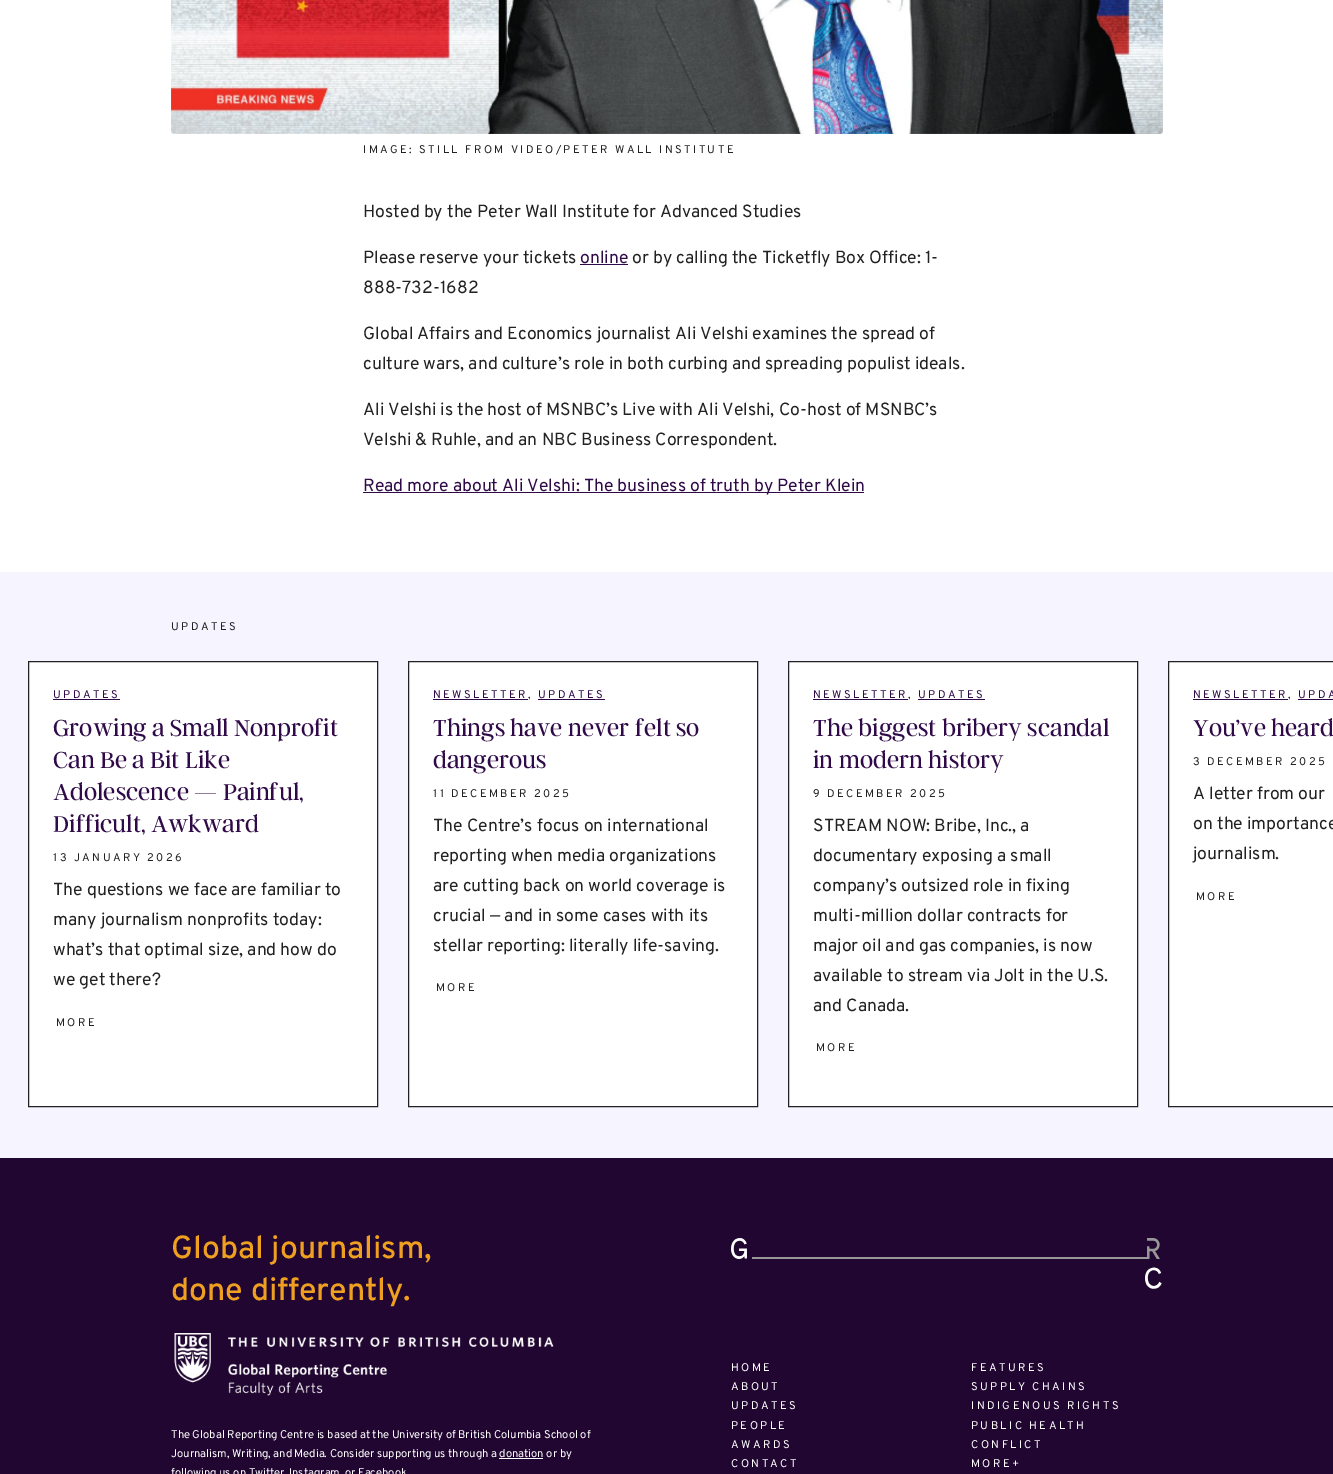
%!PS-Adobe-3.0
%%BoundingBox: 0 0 1333 1474
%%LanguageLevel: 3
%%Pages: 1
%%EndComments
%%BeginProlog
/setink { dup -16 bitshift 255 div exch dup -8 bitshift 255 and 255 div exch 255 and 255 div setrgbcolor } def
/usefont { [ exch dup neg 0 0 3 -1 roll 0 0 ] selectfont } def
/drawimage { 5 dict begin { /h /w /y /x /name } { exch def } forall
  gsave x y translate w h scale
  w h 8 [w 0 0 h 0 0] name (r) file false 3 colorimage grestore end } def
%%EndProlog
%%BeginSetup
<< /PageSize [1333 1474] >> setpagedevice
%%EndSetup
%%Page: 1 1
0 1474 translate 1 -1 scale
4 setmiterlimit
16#FFFFFF setink
0 0 1333 1474 rectfill
(img1.raw) 171 0 992 134 drawimage
/Overpass-Regular 11.2 usefont
16#222222 setink
363 153 moveto 2.4 0 (IMAGE: STILL FROM VIDEO/PETER WALL INSTITUTE) ashow
/Overpass-Regular 17.6 usefont
363 217 moveto (Hosted by the Peter Wall Institute for Advanced Studies) show
363 263 moveto (Please reserve your tickets) show
16#300A48 setink
580 263 moveto (online) show
580 264 48 1 rectfill
16#222222 setink
[
    [(or by calling the Ticketfly Box Office: 1-) 632 263]
    [(888-732-1682) 363 293]
    [(Global Affairs and Economics journalist Ali Velshi examines the spread of) 363 339]
    [(culture wars, and culture’s role in both curbing and spreading populist ideals.) 363 369]
    [(Ali Velshi is the host of MSNBC’s Live with Ali Velshi, Co-host of MSNBC’s) 363 415]
    [(Velshi & Ruhle, and an NBC Business Correspondent.) 363 445]
] { aload pop moveto show } forall
16#300A48 setink
363 492 501 1 rectfill
363 491 moveto (Read more about Ali Velshi: The business of truth by Peter Klein) show
16#F6F4FF setink
0 572 1333 586 rectfill
/Overpass-Regular 11.2 usefont
16#222222 setink
171 630 moveto 2.4 0 (UPDATES) ashow
16#FFFFFF setink
28.5 661.5 moveto 377.5 661.5 lineto 377.5 1106.5 lineto 28.5 1106.5 lineto closepath gsave fill grestore
16#222222 setink
stroke
16#300A48 setink
53 698 moveto 2.4 0 (UPDATES) ashow
53 699 67 1 rectfill
/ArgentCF-Light 25.6 usefont
[
    [(Growing a Small Nonprofit) 53 736]
    [(Can Be a Bit Like) 53 768]
    [(Adolescence — Painful,) 53 800]
    [(Difficult, Awkward) 53 832]
] { aload pop moveto show } forall
/Overpass-Regular 11.2 usefont
16#222222 setink
53 861 moveto 2.4 0 (13 JANUARY 2026) ashow
/Overpass-Regular 17.6 usefont
[
    [(The questions we face are familiar to) 53 895]
    [(many journalism nonprofits today:) 53 925]
    [(what’s that optimal size, and how do) 53 955]
    [(we get there?) 53 985]
] { aload pop moveto show } forall
/Overpass-Regular 11.2 usefont
56 1026 moveto 2.4 0 (MORE) ashow
16#FFFFFF setink
408.5 661.5 moveto 757.5 661.5 lineto 757.5 1106.5 lineto 408.5 1106.5 lineto closepath gsave fill grestore
16#222222 setink
stroke
16#300A48 setink
433 698 moveto 2.4 0 (NEWSLETTER) ashow
433 699 95 1 rectfill
16#222222 setink
528 698 moveto 2.4 0 (,) ashow
16#300A48 setink
538 698 moveto 2.4 0 (UPDATES) ashow
538 699 67 1 rectfill
/ArgentCF-Light 25.6 usefont
433 736 moveto (Things have never felt so) show
433 768 moveto (dangerous) show
/Overpass-Regular 11.2 usefont
16#222222 setink
433 797 moveto 2.4 0 (11 DECEMBER 2025) ashow
/Overpass-Regular 17.6 usefont
[
    [(The Centre’s focus on international) 433 831]
    [(reporting when media organizations) 433 861]
    [(are cutting back on world coverage is) 433 891]
    [(crucial — and in some cases with its) 433 921]
    [(stellar reporting: literally life-saving.) 433 951]
] { aload pop moveto show } forall
/Overpass-Regular 11.2 usefont
436 991 moveto 2.4 0 (MORE) ashow
16#FFFFFF setink
788.5 661.5 moveto 1137.5 661.5 lineto 1137.5 1106.5 lineto 788.5 1106.5 lineto closepath gsave fill grestore
16#222222 setink
stroke
16#300A48 setink
813 698 moveto 2.4 0 (NEWSLETTER) ashow
813 699 95 1 rectfill
16#222222 setink
908 698 moveto 2.4 0 (,) ashow
16#300A48 setink
918 698 moveto 2.4 0 (UPDATES) ashow
918 699 67 1 rectfill
/ArgentCF-Light 25.6 usefont
813 736 moveto (The biggest bribery scandal) show
813 768 moveto (in modern history) show
/Overpass-Regular 11.2 usefont
16#222222 setink
813 797 moveto 2.4 0 (9 DECEMBER 2025) ashow
/Overpass-Regular 17.6 usefont
[
    [(STREAM NOW: Bribe, Inc., a) 813 831]
    [(documentary exposing a small) 813 861]
    [(company’s outsized role in fixing) 813 891]
    [(multi-million dollar contracts for) 813 921]
    [(major oil and gas companies, is now) 813 951]
    [(available to stream via Jolt in the U.S.) 813 981]
    [(and Canada.) 813 1011]
] { aload pop moveto show } forall
/Overpass-Regular 11.2 usefont
816 1051 moveto 2.4 0 (MORE) ashow
16#FFFFFF setink
1168.5 661.5 moveto 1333.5 661.5 lineto 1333.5 1106.5 lineto 1168.5 1106.5 lineto closepath gsave fill grestore
16#222222 setink
stroke
16#300A48 setink
1193 698 moveto 2.4 0 (NEWSLETTER) ashow
1193 699 95 1 rectfill
16#222222 setink
1288 698 moveto 2.4 0 (,) ashow
16#300A48 setink
1298 698 moveto 2.4 0 (UPDA) ashow
1298 699 35 1 rectfill
/ArgentCF-Light 25.6 usefont
1193 736 moveto (You’ve heard) show
/Overpass-Regular 11.2 usefont
16#222222 setink
1193 765 moveto 2.4 0 (3 DECEMBER 2025) ashow
/Overpass-Regular 17.6 usefont
[
    [(A letter from our) 1193 799]
    [(on the importance) 1193 829]
    [(journalism.) 1193 859]
] { aload pop moveto show } forall
/Overpass-Regular 11.2 usefont
1196 900 moveto 2.4 0 (MORE) ashow
16#200630 setink
0 1158 1333 316 rectfill
/Overpass-Medium 32 usefont
16#F0A020 setink
171 1258 moveto (Global journalism,) show
171 1300 moveto (done differently.) show
(img2.raw) 174 1333 380 63 drawimage
/Overpass-Regular 11.2 usefont
16#FFFFFF setink
171 1438 moveto (The Global Reporting Centre is based at the University of British Columbia School of) show
171 1457 moveto (Journalism, Writing, and Media. Consider supporting us through a donation or by) show
499 1458 44 1 rectfill
[
    [(following us on Twitter) 171 1476]
    [(Instagram) 289 1476]
    [(or Facebook) 345 1476]
] { aload pop moveto show } forall
(img3.raw) 731 1238 16 21 drawimage
16#989899 setink
752 1257 396 2 rectfill
(img4.raw) 1145 1238 17 51 drawimage
16#FFFFFF setink
731 1371 moveto 2.4 0 (HOME) ashow
731 1390 moveto 2.4 0 (ABOUT) ashow
731 1409 moveto 2.4 0 (UPDATES) ashow
731 1429 moveto 2.4 0 (PEOPLE) ashow
731 1448 moveto 2.4 0 (AWARDS) ashow
731 1467 moveto 2.4 0 (CONTACT) ashow
971 1371 moveto 2.4 0 (FEATURES) ashow
971 1390 moveto 2.4 0 (SUPPLY CHAINS) ashow
971 1409 moveto 2.4 0 (INDIGENOUS RIGHTS) ashow
971 1429 moveto 2.4 0 (PUBLIC HEALTH) ashow
971 1448 moveto 2.4 0 (CONFLICT) ashow
971 1467 moveto 2.4 0 (MORE+) ashow
showpage
%%EOF
